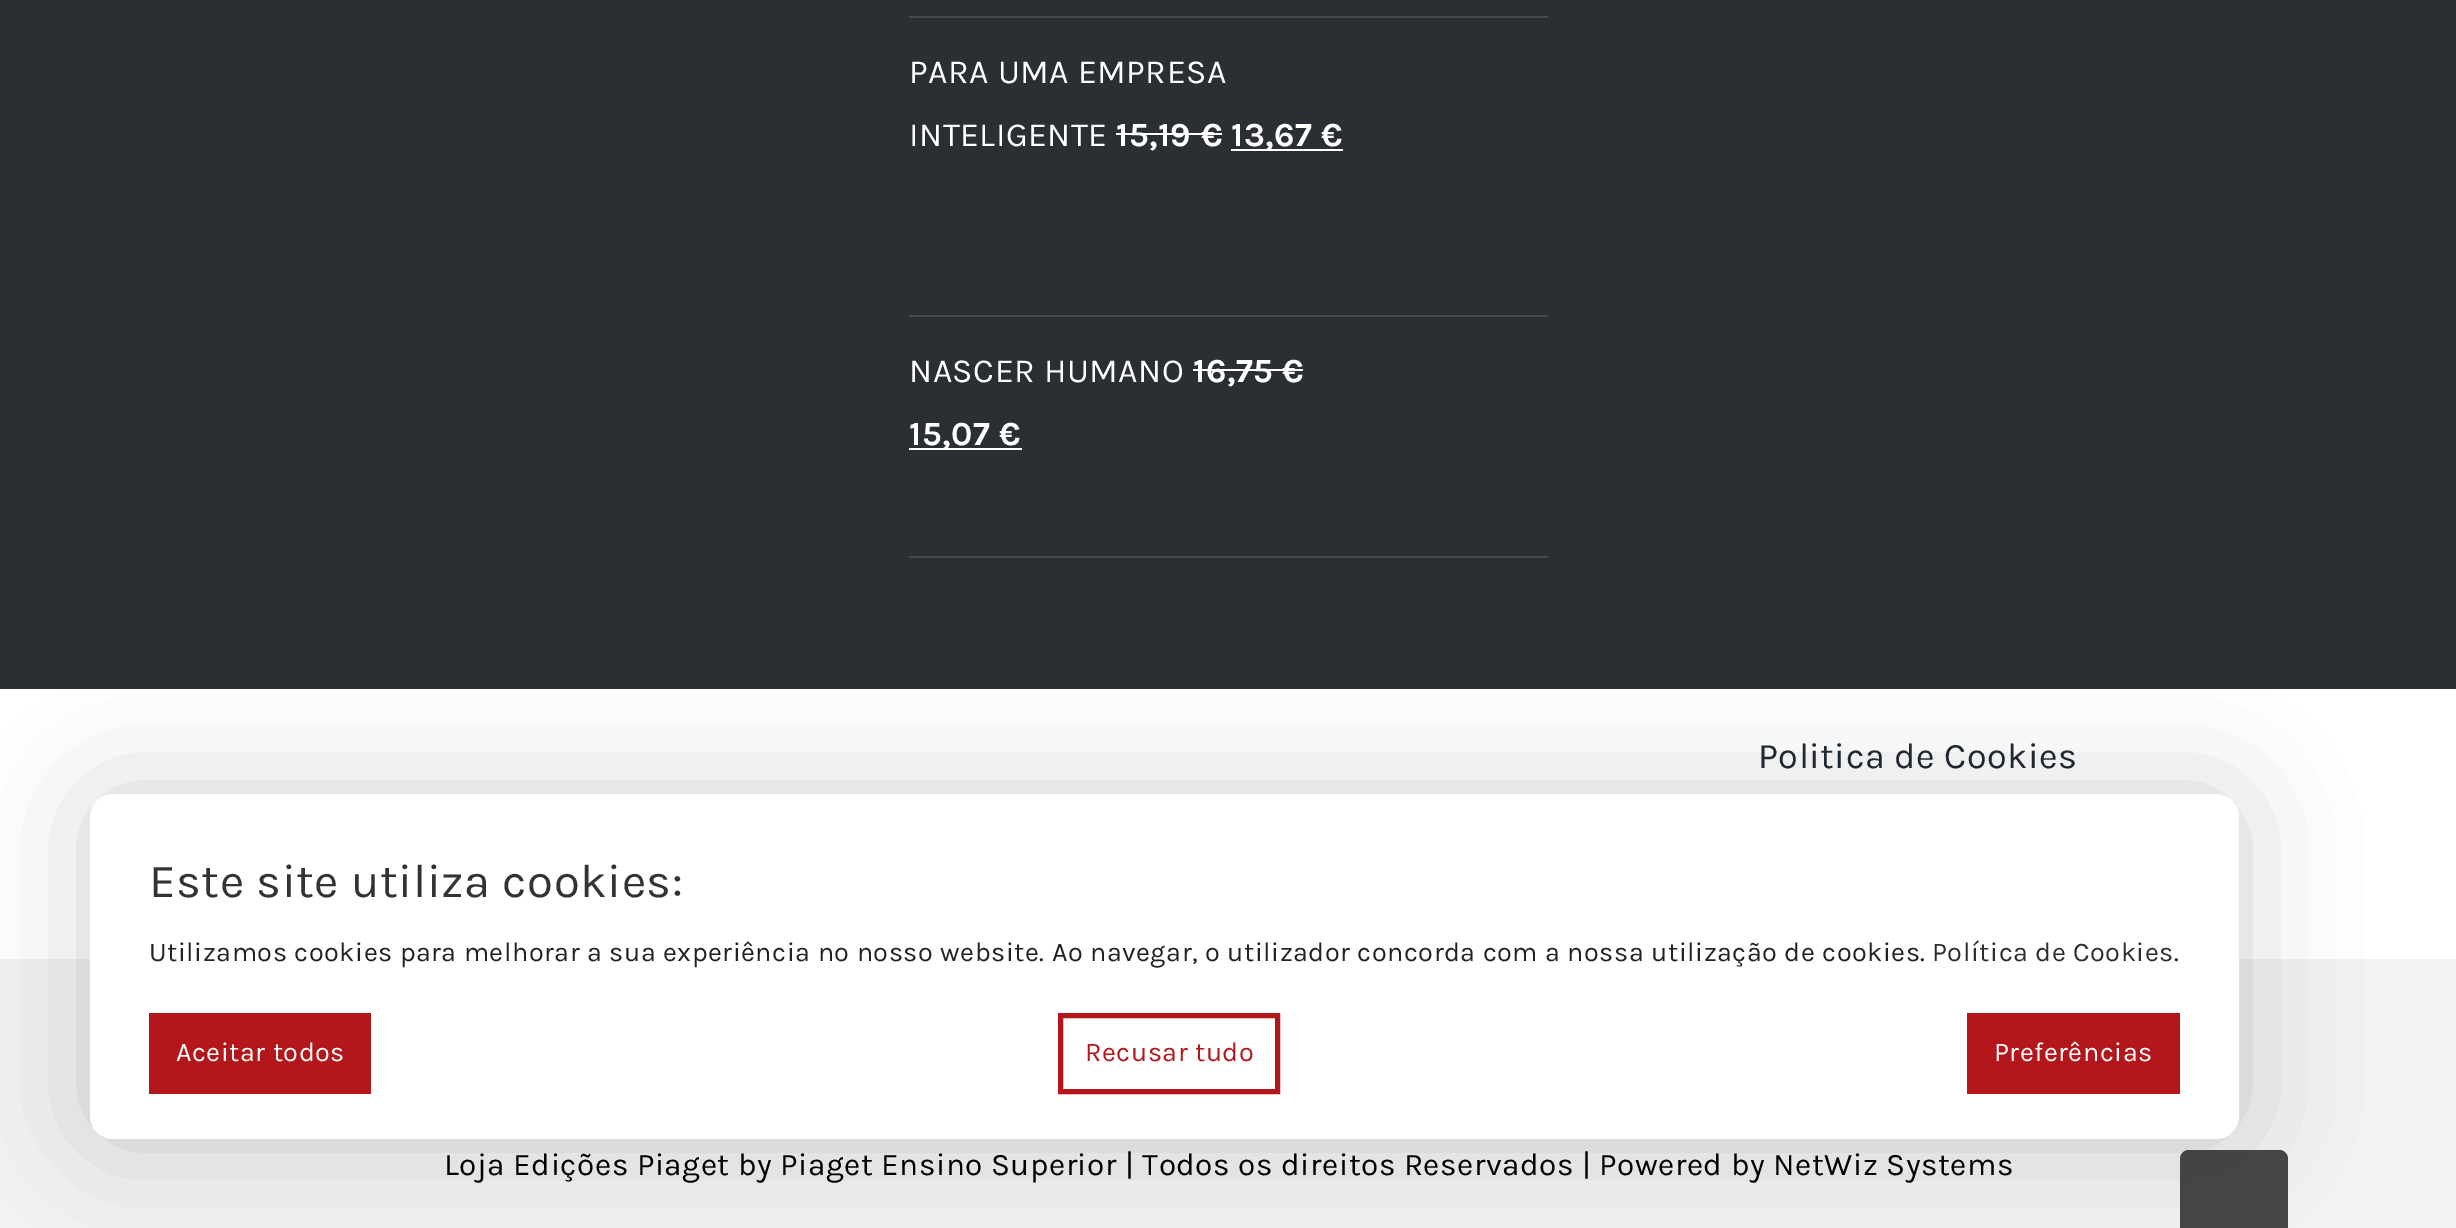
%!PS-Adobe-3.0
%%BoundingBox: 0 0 2456 1228
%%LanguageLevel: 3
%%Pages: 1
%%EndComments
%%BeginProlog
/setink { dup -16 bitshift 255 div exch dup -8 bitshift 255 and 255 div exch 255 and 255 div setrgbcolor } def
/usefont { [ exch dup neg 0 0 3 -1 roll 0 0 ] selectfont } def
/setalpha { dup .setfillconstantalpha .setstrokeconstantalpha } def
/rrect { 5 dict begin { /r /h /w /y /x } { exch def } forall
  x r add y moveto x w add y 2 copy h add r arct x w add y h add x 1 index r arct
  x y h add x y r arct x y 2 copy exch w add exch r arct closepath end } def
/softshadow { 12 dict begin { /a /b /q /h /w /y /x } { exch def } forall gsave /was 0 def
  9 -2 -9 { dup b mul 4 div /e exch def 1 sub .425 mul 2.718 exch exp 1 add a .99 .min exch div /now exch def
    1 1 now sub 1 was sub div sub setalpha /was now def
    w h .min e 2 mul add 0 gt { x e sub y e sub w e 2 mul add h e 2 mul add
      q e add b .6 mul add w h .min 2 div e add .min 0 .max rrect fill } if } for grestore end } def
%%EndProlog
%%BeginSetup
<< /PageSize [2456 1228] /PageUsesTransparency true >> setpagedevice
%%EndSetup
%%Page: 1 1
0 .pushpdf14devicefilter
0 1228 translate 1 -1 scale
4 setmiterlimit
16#FFFFFF setink
0 0 2456 1228 rectfill
[
    [0 0 2456 689 16#2B2E32]
    [909 16 639 2 16#494949]
    [909 315 639 2 16#494949]
] { aload pop setink rectfill } forall
/Karla-Regular 33.75 usefont
16#FFFFFF setink
909 83 moveto 0.51 0 (PARA UMA EMPRESA) ashow
909 146 moveto 0.51 0 (INTELIGENTE) ashow
/Karla-Bold 33.75 usefont
1116 146 moveto 0.51 0 (15,19) ashow
1116 133 86 2 rectfill
1201 146 moveto 0.51 0 (€) ashow
1202 133 20 2 rectfill
1231 149 112 2 rectfill
1231 146 moveto 0.51 0 (13,67 €) ashow
16#494949 setink
909 556 639 2 rectfill
/Karla-Regular 33.75 usefont
16#FFFFFF setink
909 382 moveto 0.51 0 (NASCER HUMANO) ashow
/Karla-Bold 33.75 usefont
1193 382 moveto 0.51 0 (16,75) ashow
1193 369 90 2 rectfill
1282 382 moveto 0.51 0 (€) ashow
1283 369 20 2 rectfill
909 448 113 2 rectfill
909 445 moveto 0.51 0 (15,07 €) ashow
/Karla-Regular 36 usefont
16#212934 setink
1758 768 moveto 0.5 0 (Politica de Cookies) ashow
16#F2F2F2 setink
0 959 2456 269 rectfill
/Karla-Regular 31.5 usefont
16#000000 setink
444 1175 moveto 0.51 0 (Loja Edições Piaget by Piaget Ensino Superior | Todos os direitos Reservados | Powered by NetWiz Systems) ashow
90 794 2149 345 23 56 0.19 softshadow
16#FFFFFF setink
90 794 2149 345 23 rrect fill
/Karla-Regular 47.25 usefont
16#333333 setink
149 897 moveto 0.51 0 (Este site utiliza cookies:) ashow
/Karla-Regular 27 usefont
16#222222 setink
149 961 moveto 0.51 0 (Utilizamos cookies para melhorar a sua experiência no nosso website. Ao navegar, o utilizador concorda com a nossa utilização de cookies.) ashow
16#2B2E32 setink
1932 961 moveto 0.51 0 (Política de Cookies) ashow
16#222222 setink
2174 961 moveto 0.51 0 (.) ashow
16#B3171B setink
149 1013 222 81 rectfill
16#FFFFFF setink
176 1061 moveto 0.51 0 (Aceitar todos) ashow
16#B3171B setink
5 setlinewidth
1060.5 1015.5 217 76 rectstroke
1085 1061 moveto 0.51 0 (Recusar tudo) ashow
1967 1013 213 81 rectfill
16#FFFFFF setink
1994 1061 moveto 0.51 0 (Preferências) ashow
0.9 setalpha
16#333333 setink
2189 1150 moveto 2279 1150 lineto 2284 1150 2288 1154 2288 1159 curveto 2288 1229 lineto 2180 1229 lineto 2180 1159 lineto 2180 1154 2184 1150 2189 1150 curveto closepath fill
.poppdf14devicefilter showpage
%%EOF
